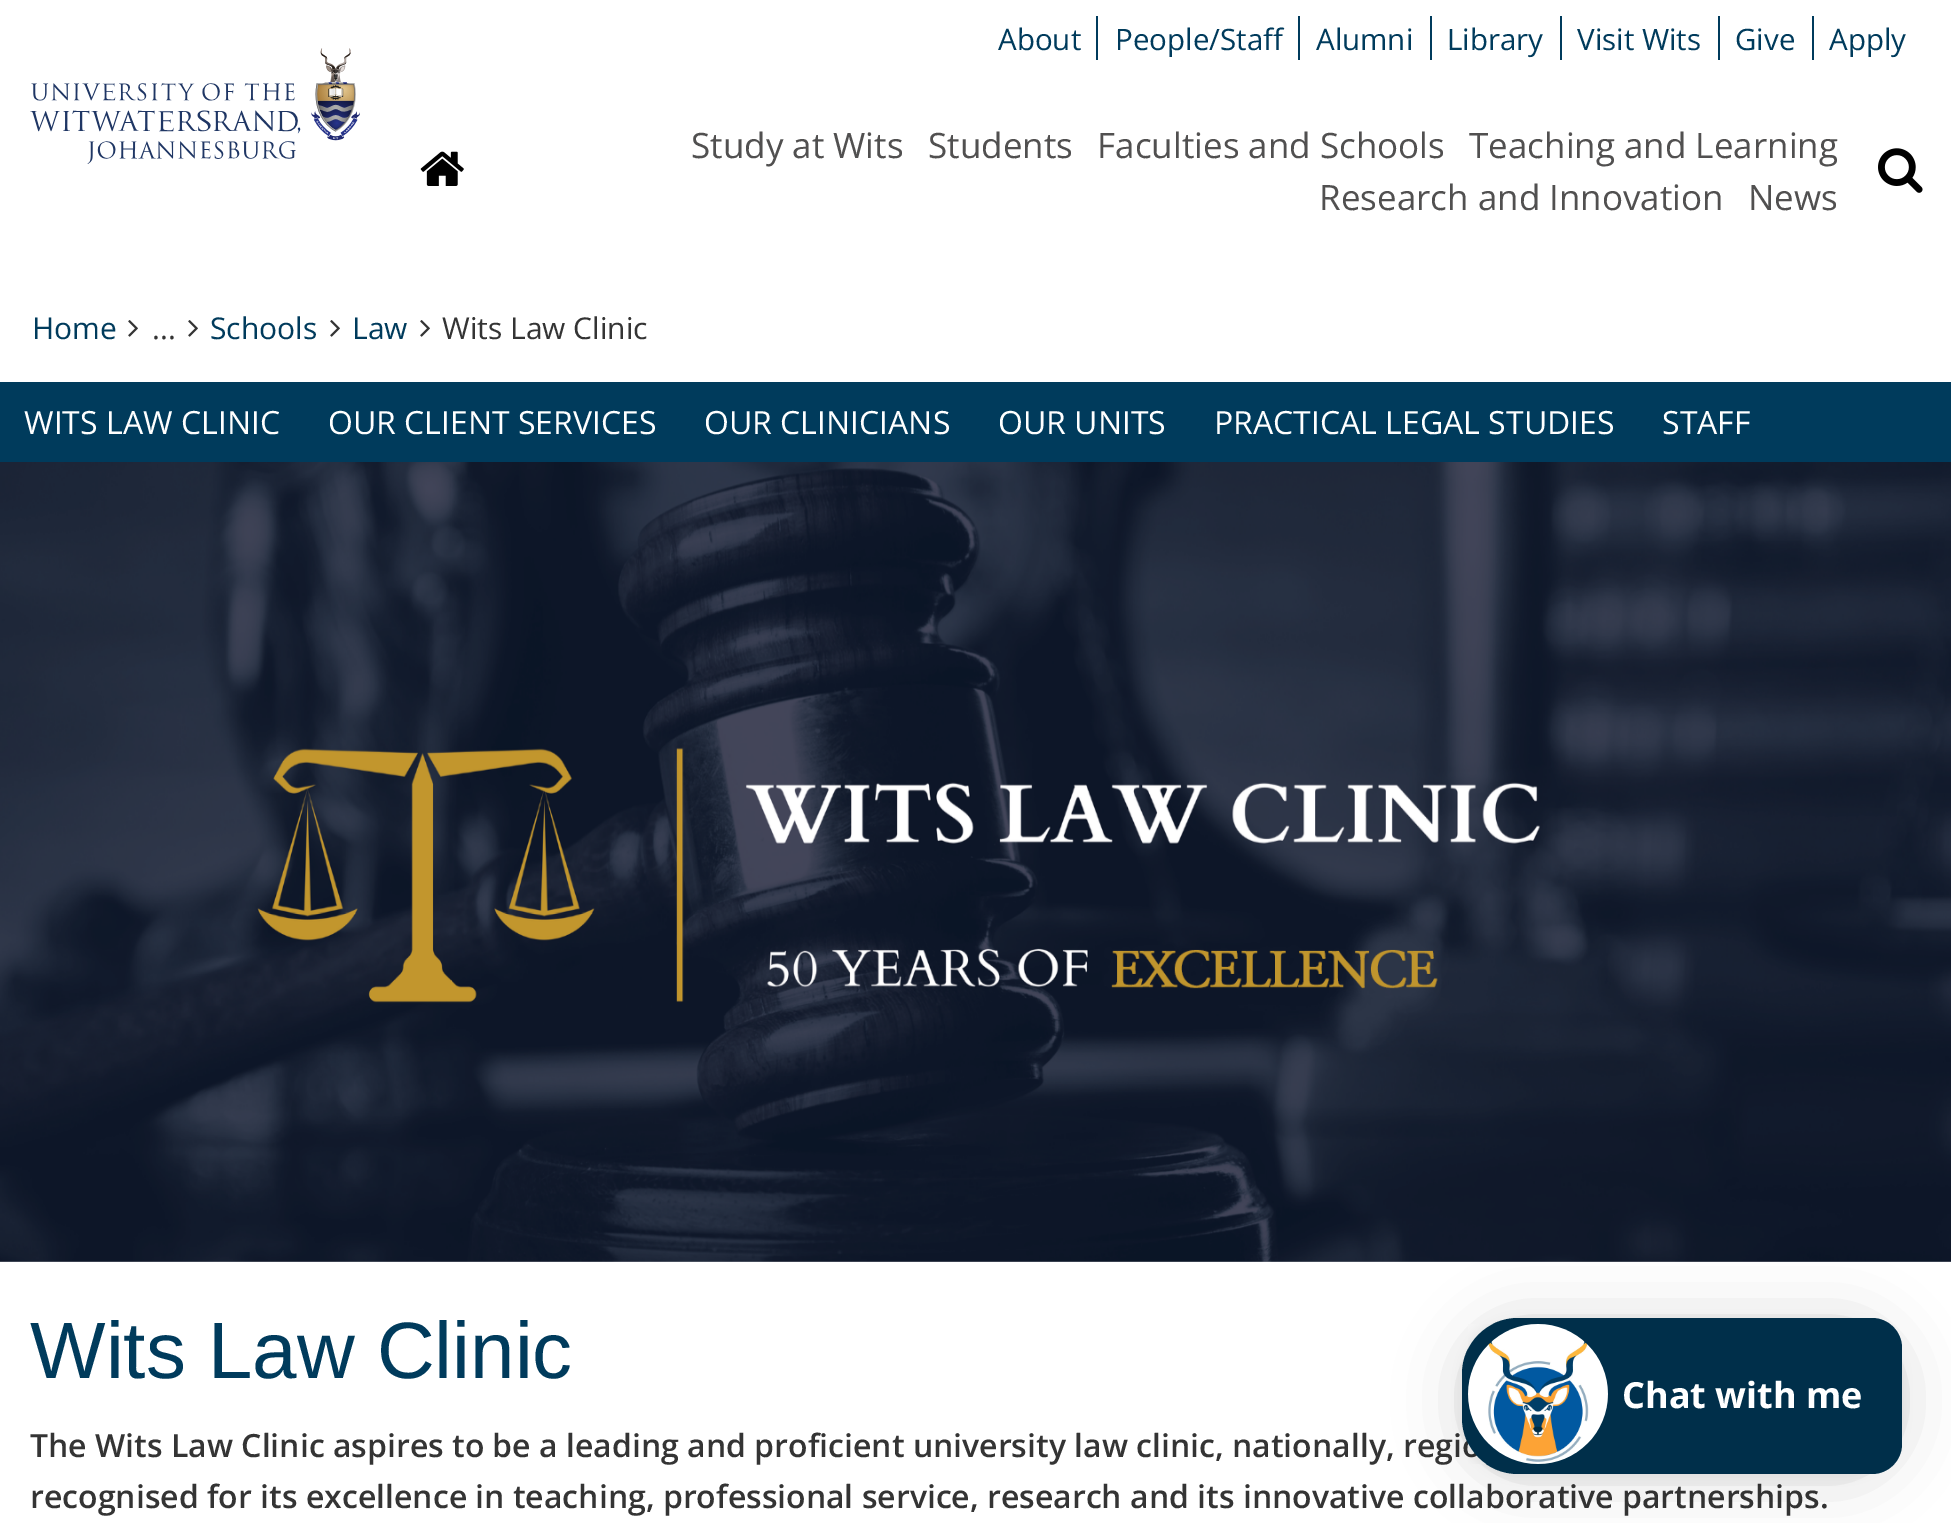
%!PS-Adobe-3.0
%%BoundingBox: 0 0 1951 1523
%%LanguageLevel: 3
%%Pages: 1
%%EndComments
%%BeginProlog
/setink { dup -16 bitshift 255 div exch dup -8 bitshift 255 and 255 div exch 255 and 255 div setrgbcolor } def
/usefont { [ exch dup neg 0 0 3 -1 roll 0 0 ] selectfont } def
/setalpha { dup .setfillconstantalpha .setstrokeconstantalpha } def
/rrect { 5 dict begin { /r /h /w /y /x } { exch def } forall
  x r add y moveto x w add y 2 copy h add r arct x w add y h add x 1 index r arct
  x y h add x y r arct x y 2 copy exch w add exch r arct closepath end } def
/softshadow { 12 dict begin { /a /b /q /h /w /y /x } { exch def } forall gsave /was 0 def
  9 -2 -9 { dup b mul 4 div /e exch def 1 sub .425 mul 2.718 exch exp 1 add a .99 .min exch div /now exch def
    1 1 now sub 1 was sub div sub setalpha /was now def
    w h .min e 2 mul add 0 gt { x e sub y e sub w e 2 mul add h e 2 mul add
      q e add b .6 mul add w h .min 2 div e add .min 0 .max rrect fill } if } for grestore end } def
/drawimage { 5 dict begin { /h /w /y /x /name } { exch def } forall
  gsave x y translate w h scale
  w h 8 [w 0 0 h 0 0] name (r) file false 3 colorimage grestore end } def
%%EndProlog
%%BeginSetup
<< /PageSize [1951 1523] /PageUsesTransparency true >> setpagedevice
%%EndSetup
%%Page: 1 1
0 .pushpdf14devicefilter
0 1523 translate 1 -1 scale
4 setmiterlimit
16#FFFFFF setink
0 0 1951 1523 rectfill
(img1.raw) 30 48 330 116 drawimage
/OpenSans-Regular 29.5 usefont
16#003B5C setink
998 50 moveto (About) show
1096 16 2 44 rectfill
1115 50 moveto (People/Staff) show
1298 16 2 44 rectfill
1316 50 moveto (Alumni) show
1430 16 2 44 rectfill
1447 50 moveto (Library) show
1560 16 2 44 rectfill
1577 50 moveto (Visit Wits) show
1718 16 2 44 rectfill
1735 50 moveto (Give) show
1812 16 2 44 rectfill
1829 50 moveto (Apply) show
(img2.raw) 420 151 44 35 drawimage
/OpenSans-Regular 35 usefont
16#515050 setink
[
    [(Study at Wits) 691 158]
    [(Students) 928 158]
    [(Faculties and Schools) 1097 158]
    [(Teaching and Learning) 1469 158]
    [(Research and Innovation) 1319 210]
    [(News) 1748 210]
] { aload pop moveto show } forall
(img3.raw) 1878 148 45 45 drawimage
/OpenSans-Regular 30 usefont
16#003B5C setink
32 339 moveto (Home) show
(img4.raw) 128 320 10 17 drawimage
(img4.raw) 188 320 10 17 drawimage
16#343434 setink
152 339 moveto (...) show
16#003B5C setink
210 339 moveto (Schools) show
(img4.raw) 330 320 10 17 drawimage
352 339 moveto (Law) show
(img4.raw) 420 320 10 17 drawimage
16#343434 setink
442 339 moveto (Wits Law Clinic) show
16#003B5C setink
0 382 1951 80 rectfill
/OpenSans-Regular 32 usefont
16#FFFFFF setink
[
    [(WITS LAW CLINIC) 24 434]
    [(OUR CLIENT SERVICES) 328 434]
    [(OUR CLINICIANS) 704 434]
    [(OUR UNITS) 998 434]
    [(PRACTICAL LEGAL STUDIES) 1214 434]
    [(STAFF) 1662 434]
] { aload pop moveto show } forall
(img5.raw) 0 462 1951 800 drawimage
/LiberationSans-Regular 80 usefont
16#003B5C setink
30 1378 moveto (Wits Law Clinic) show
/OpenSans-SemiBold 32 usefont
16#343434 setink
30 1457 moveto (The Wits Law Clinic aspires to be a leading and proficient university law clinic, nationally, regio) show
30 1508 moveto (recognised for its excellence in teaching, professional service, research and its innovative collaborative partnerships.) show
16#000000 setink
1462 1322 440 156 56 32 0.16 softshadow
1462 1320 440 156 56 6 0.06 softshadow
16#002F4A setink
1518 1318 moveto 1872 1318 lineto 1888.5 1318 1902 1331.5 1902 1348 curveto 1902 1444 lineto 1902 1460.5 1888.5 1474 1872 1474 curveto 1518 1474 lineto 1487 1474 1462 1449 1462 1418 curveto 1462 1374 lineto 1462 1343 1487 1318 1518 1318 curveto closepath fill
(img6.raw) 1468 1324 140 140 drawimage
/OpenSans-Bold 36 usefont
16#FFFFFF setink
1622 1408 moveto (Chat with me) show
.poppdf14devicefilter showpage
%%EOF
